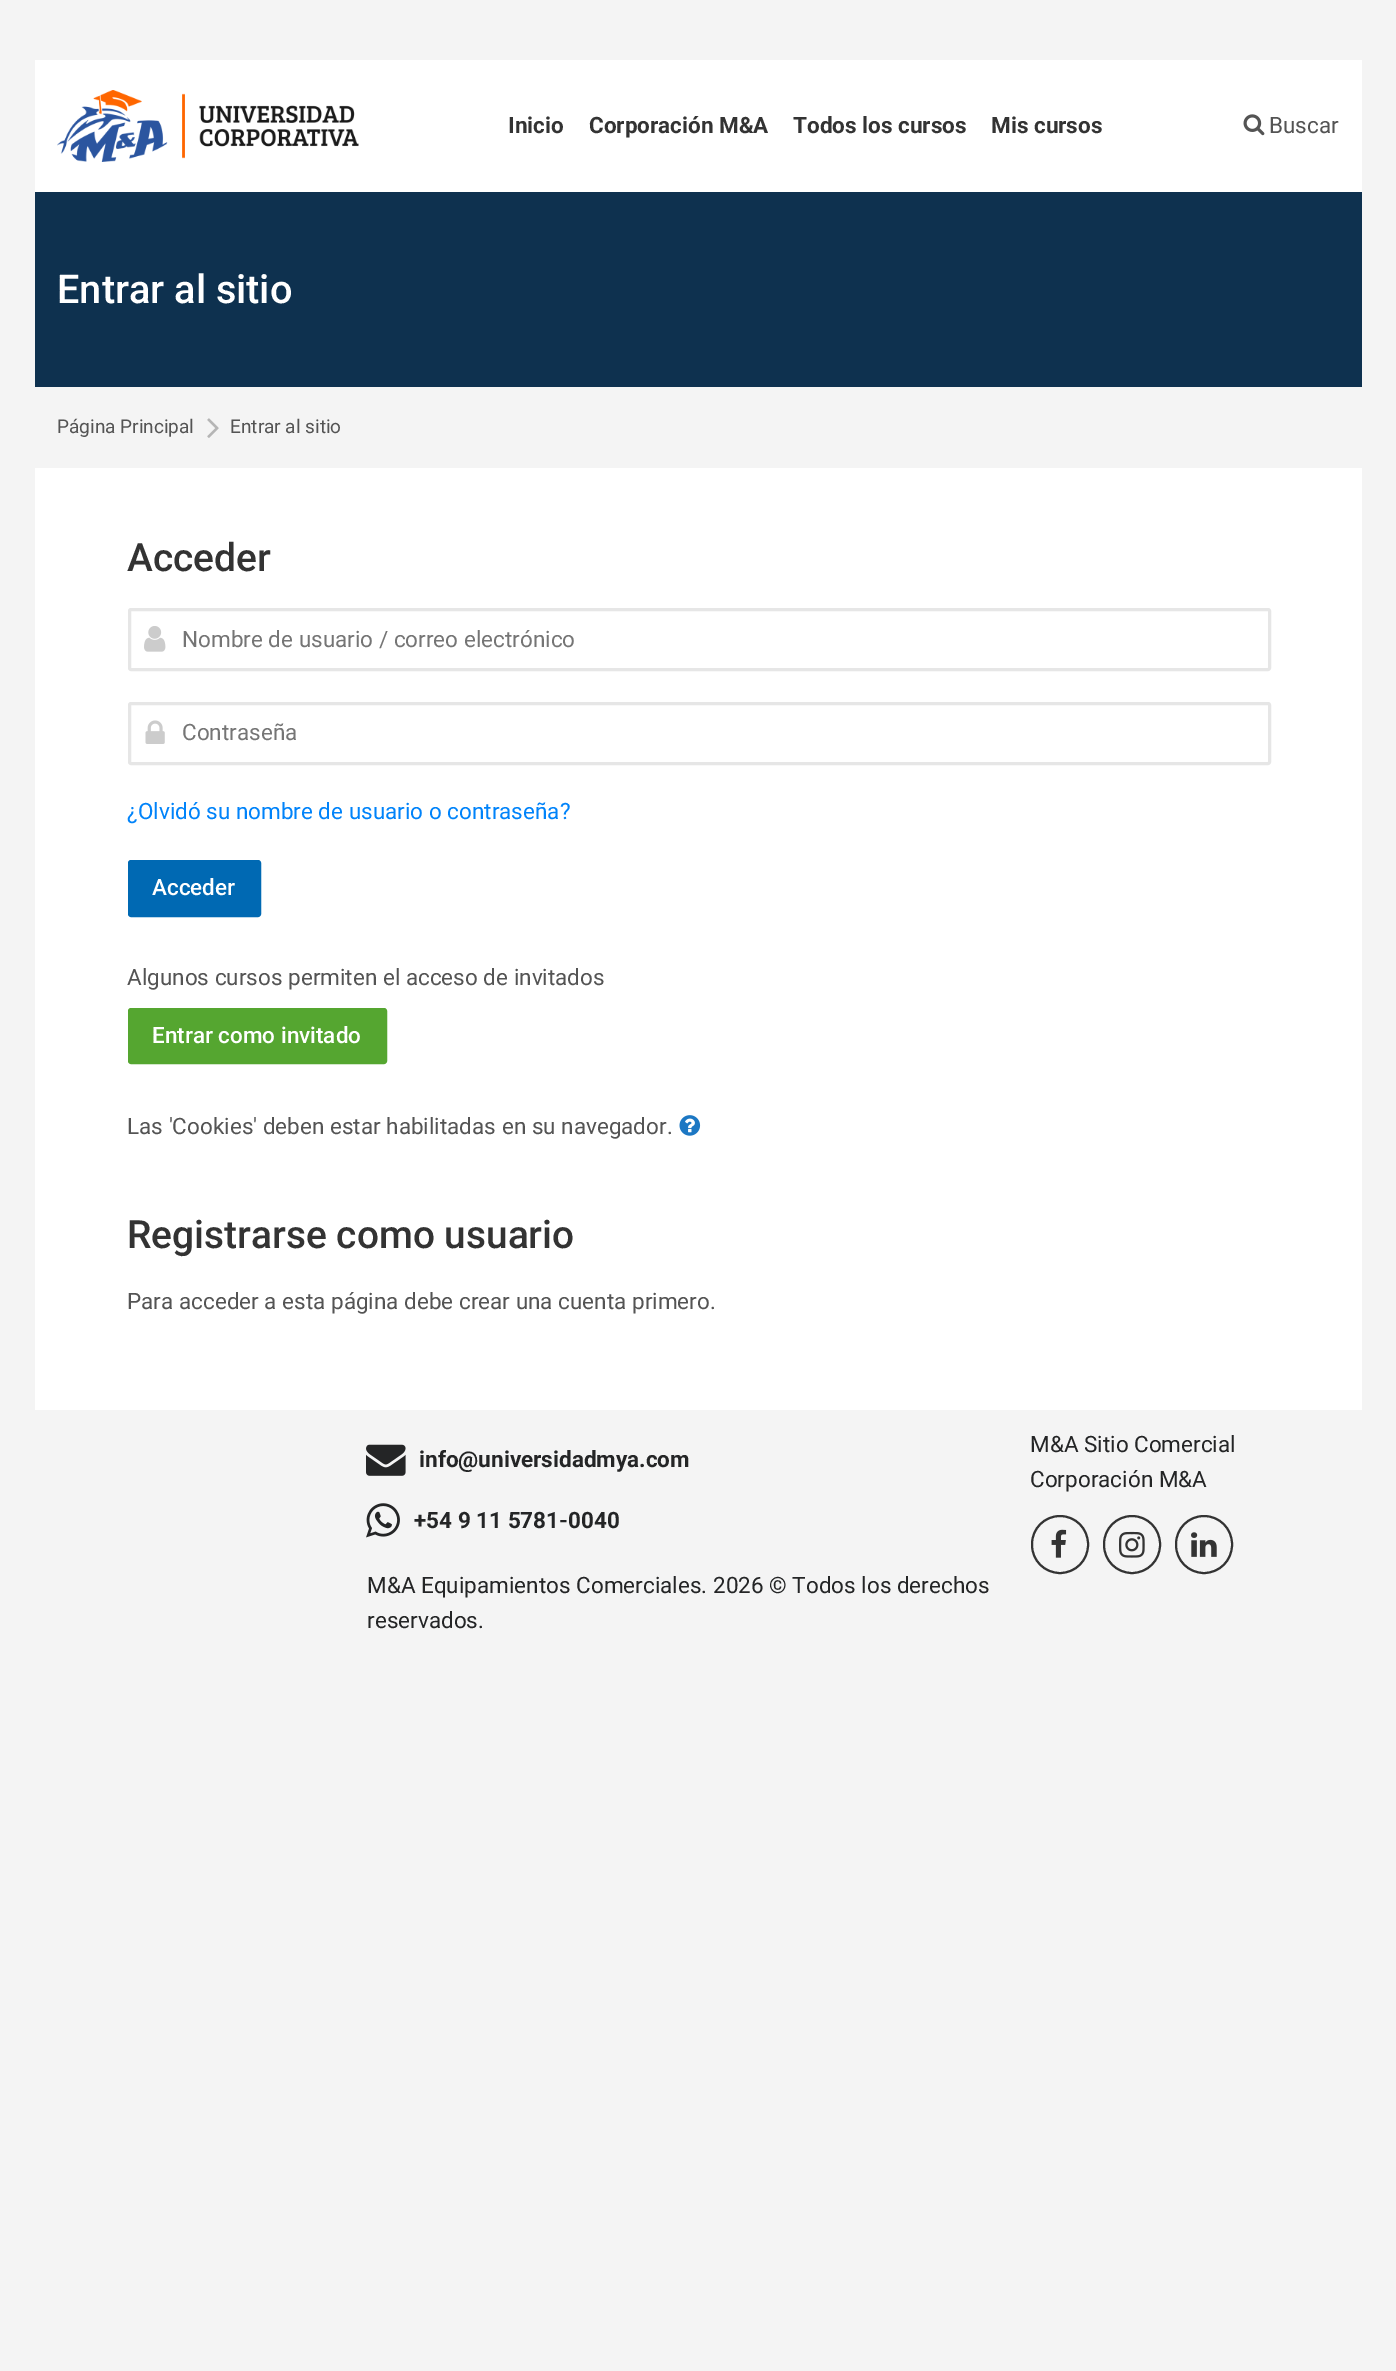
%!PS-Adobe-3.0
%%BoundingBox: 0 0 1396 2371
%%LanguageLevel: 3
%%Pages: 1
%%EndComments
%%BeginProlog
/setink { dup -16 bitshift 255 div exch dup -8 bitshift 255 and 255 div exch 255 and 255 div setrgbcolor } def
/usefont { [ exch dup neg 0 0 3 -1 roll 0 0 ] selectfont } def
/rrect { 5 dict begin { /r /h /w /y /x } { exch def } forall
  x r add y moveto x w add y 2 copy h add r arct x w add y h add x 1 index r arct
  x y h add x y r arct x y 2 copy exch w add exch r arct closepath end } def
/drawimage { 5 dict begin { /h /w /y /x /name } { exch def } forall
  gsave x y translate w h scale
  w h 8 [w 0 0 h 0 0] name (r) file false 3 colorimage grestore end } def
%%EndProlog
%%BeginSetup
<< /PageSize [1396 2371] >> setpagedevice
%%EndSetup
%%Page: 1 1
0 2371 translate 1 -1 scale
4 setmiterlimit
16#F4F4F4 setink
0 0 1396 2371 rectfill
16#FFFFFF setink
35 60 1327 132 rectfill
(img1.raw) 57 90 302 72 drawimage
/Roboto-Bold 22.5 usefont
16#333333 setink
[
    [(Inicio) 508 133]
    [(Corporación M&A) 589 133]
    [(Todos los cursos) 793 133]
    [(Mis cursos) 991 133]
] { aload pop moveto show } forall
(img2.raw) 1243 114 22 22 drawimage
/Roboto-Regular 22.5 usefont
16#545454 setink
1269 133 moveto (Buscar) show
16#0E314F setink
35 192 1327 195 rectfill
/Roboto-Medium 39.75 usefont
16#FFFFFF setink
57 303 moveto (Entrar al sitio) show
/Roboto-Regular 19 usefont
16#545454 setink
57 433 moveto (Página Principal) show
(img3.raw) 207 418 12 20 drawimage
230 433 moveto (Entrar al sitio) show
16#FFFFFF setink
35 468 1327 942 rectfill
/Roboto-Medium 38.9 usefont
16#333333 setink
127 571 moveto (Acceder) show
16#E6E6E6 setink
3 setlinewidth
129.5 609.5 1140 60 1.5 rrect stroke
(img4.raw) 144 626 22 26 drawimage
/Roboto-Regular 22.5 usefont
16#757575 setink
182 647 moveto (Nombre de usuario / correo electrónico) show
16#E6E6E6 setink
129.5 703.5 1140 60 1.5 rrect stroke
(img5.raw) 145 720 20 24 drawimage
16#757575 setink
182 740 moveto (Contraseña) show
16#0083FA setink
127 819 moveto (¿Olvidó su nombre de usuario o contraseña?) show
16#0069B3 setink
129.5 861.5 130 54 1.5 rrect gsave fill grestore
stroke
/Roboto-Medium 22.5 usefont
16#FFFFFF setink
152 895 moveto (Acceder) show
/Roboto-Regular 22.5 usefont
16#545454 setink
127 985 moveto (Algunos cursos permiten el acceso de invitados) show
16#55A630 setink
129.5 1009.5 256 53 1.5 rrect gsave fill grestore
stroke
/Roboto-Medium 22.5 usefont
16#FFFFFF setink
152 1043 moveto (Entrar como invitado) show
/Roboto-Regular 22.5 usefont
16#545454 setink
127 1134 moveto (Las 'Cookies' deben estar habilitadas en su navegador.) show
(img6.raw) 679 1115 22 21 drawimage
/Roboto-Medium 38.9 usefont
16#333333 setink
127 1248 moveto (Registrarse como usuario) show
/Roboto-Regular 22.5 usefont
16#545454 setink
127 1309 moveto (Para acceder a esta página debe crear una cuenta primero.) show
(img7.raw) 366 1444 40 32 drawimage
/Roboto-Bold 22.5 usefont
16#242526 setink
419 1467 moveto (info@universidadmya.com) show
(img8.raw) 366 1503 34 35 drawimage
414 1528 moveto (+54 9 11 5781-0040) show
/Roboto-Regular 22.5 usefont
[
    [(M&A Equipamientos Comerciales. 2026 © Todos los derechos) 367 1593]
    [(reservados.) 367 1628]
    [(M&A Sitio Comercial) 1030 1452]
    [(Corporación M&A) 1030 1487]
] { aload pop moveto show } forall
16#333333 setink
2 setlinewidth
1032 1516 56 57 28 rrect stroke
(img9.raw) 1051 1529 16 29 drawimage
1104 1516 56 57 28 rrect stroke
(img10.raw) 1119 1531 26 27 drawimage
1176 1516 56 57 28 rrect stroke
(img11.raw) 1191 1532 26 25 drawimage
showpage
%%EOF
